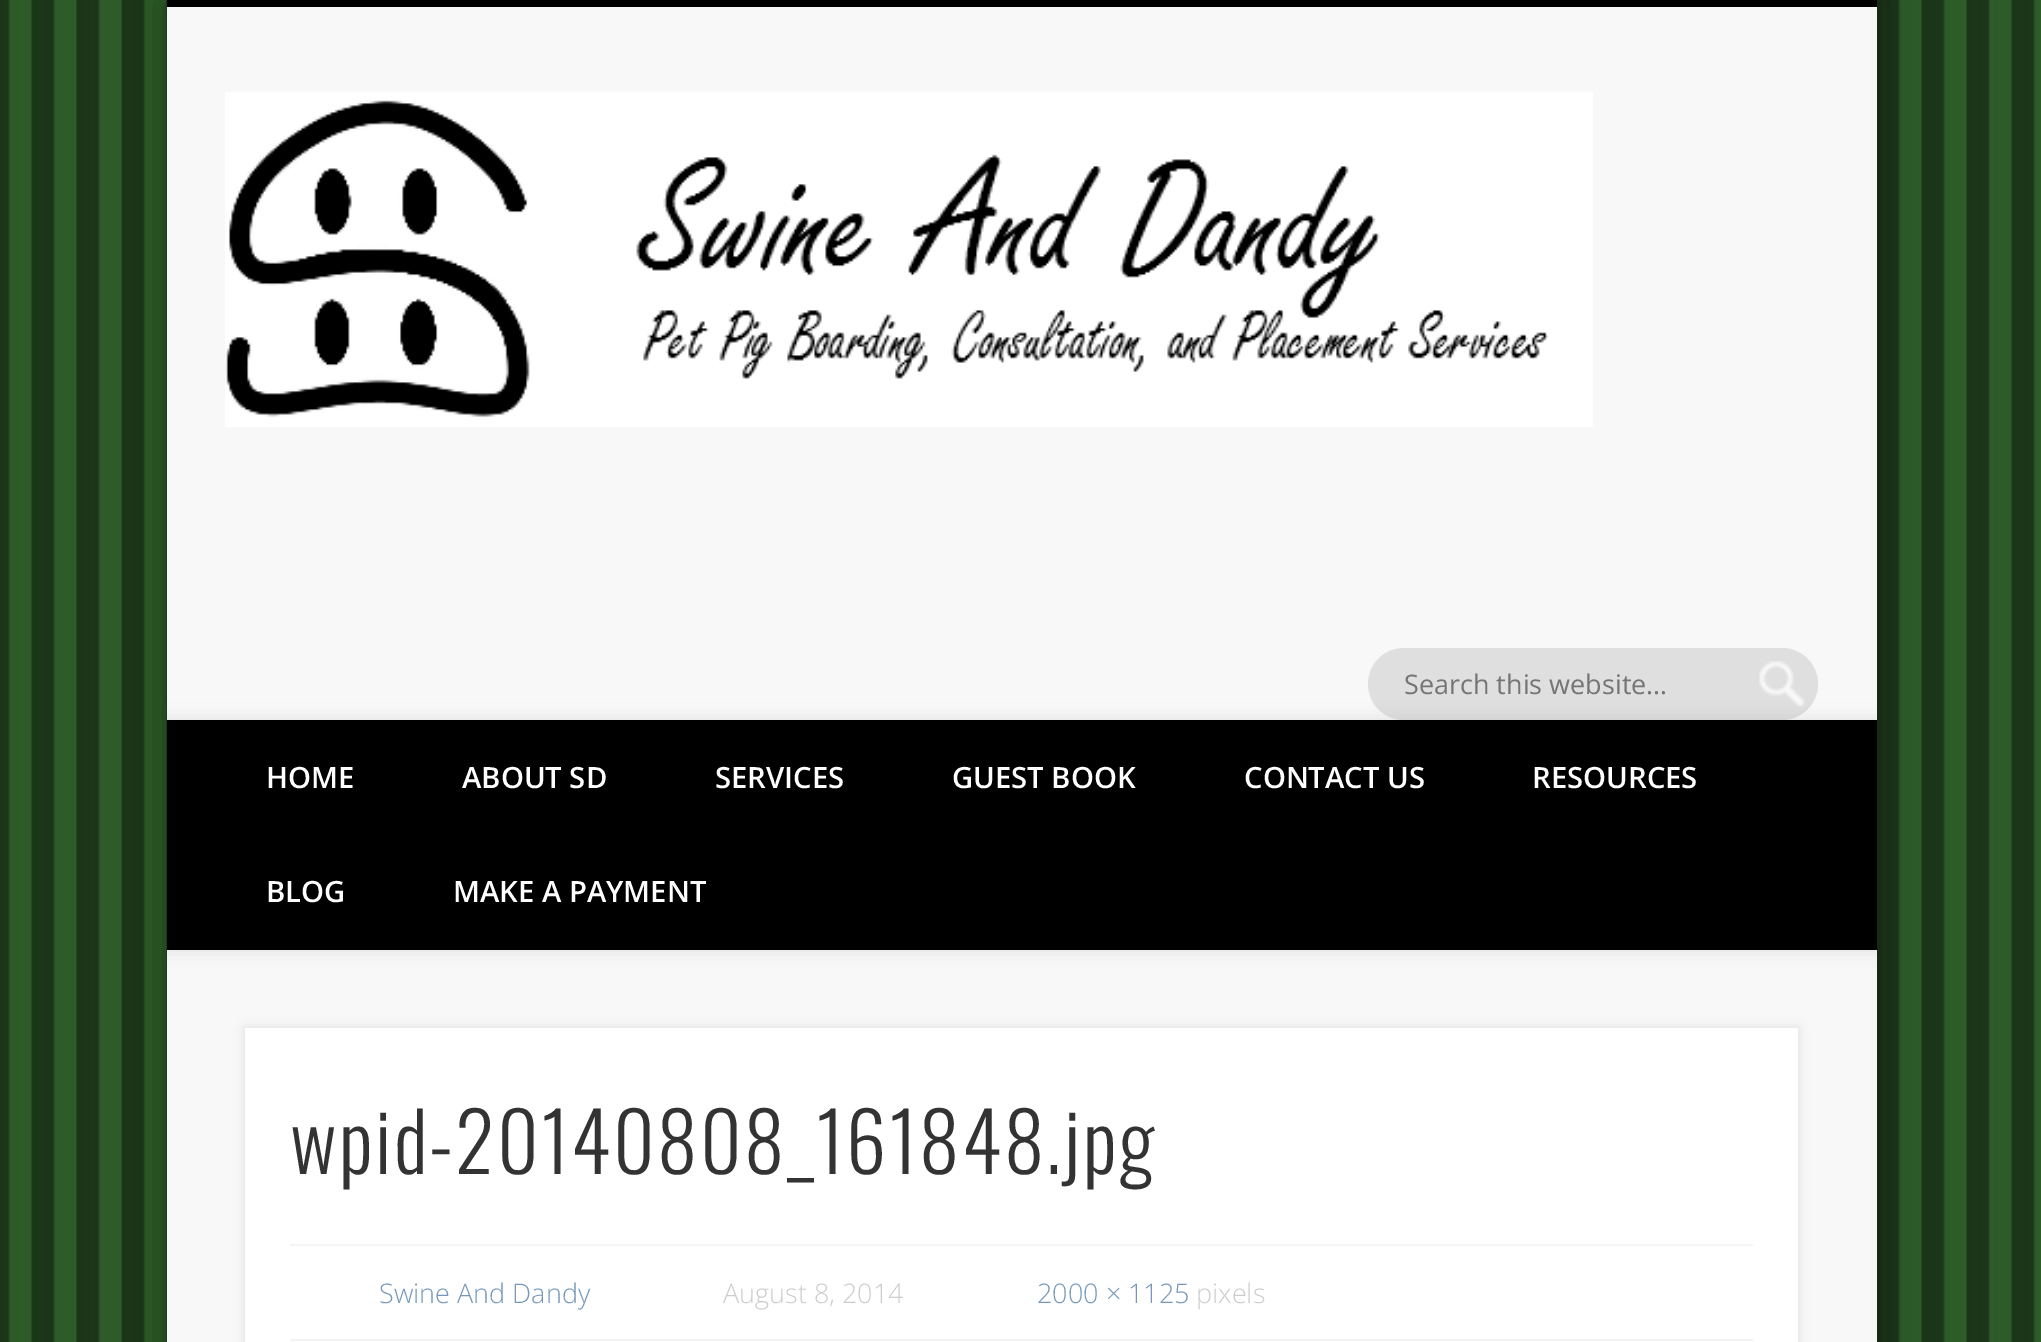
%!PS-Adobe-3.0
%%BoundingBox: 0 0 2041 1342
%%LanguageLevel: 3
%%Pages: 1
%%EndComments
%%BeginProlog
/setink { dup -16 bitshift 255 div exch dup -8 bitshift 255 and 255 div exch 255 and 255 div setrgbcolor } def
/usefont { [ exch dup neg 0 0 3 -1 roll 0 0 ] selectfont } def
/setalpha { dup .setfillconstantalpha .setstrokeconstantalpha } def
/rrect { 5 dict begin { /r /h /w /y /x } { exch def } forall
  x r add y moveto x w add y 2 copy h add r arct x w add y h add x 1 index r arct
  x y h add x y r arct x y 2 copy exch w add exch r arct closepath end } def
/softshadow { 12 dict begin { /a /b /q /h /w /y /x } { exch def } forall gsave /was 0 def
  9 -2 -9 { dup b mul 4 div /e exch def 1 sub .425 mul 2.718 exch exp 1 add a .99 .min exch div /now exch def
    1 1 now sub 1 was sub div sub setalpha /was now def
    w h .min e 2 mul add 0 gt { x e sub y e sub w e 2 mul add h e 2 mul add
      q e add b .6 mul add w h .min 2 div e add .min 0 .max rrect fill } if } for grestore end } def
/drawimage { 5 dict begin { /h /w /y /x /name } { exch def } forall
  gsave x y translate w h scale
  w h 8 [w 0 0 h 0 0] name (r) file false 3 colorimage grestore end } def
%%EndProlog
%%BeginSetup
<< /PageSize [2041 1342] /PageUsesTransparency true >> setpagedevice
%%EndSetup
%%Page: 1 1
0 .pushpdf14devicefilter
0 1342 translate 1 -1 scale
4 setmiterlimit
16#FFFFFF setink
0 0 2041 1342 rectfill
(img1.raw) 0 0 2041 1342 drawimage
16#000000 setink
167 0 1710 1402 0 20 0.4 softshadow
16#F8F8F8 setink
167 7 1710 1335 rectfill
16#000000 setink
167 0 1710 7 rectfill
(img2.raw) 225 92 1368 335 drawimage
16#DFDFDF setink
1368 648 450 72 36 rrect fill
(img3.raw) 1759 661 46 46 drawimage
/OpenSans-Regular 27 usefont
16#757575 setink
1404 694 moveto (Search this website…) show
gsave
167 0 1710 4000 rectclip
16#000000 setink
167 720 1710 230 0 8 0.1 softshadow
grestore
16#000000 setink
167 720 1710 230 rectfill
/OpenSans-SemiBold 29.25 usefont
16#FFFFFF setink
[
    [(HOME) 266 788]
    [(ABOUT SD) 462 788]
    [(SERVICES) 715 788]
    [(GUEST BOOK) 952 788]
    [(CONTACT US) 1244 788]
    [(RESOURCES) 1532 788]
    [(BLOG) 266 902]
    [(MAKE A PAYMENT) 453 902]
] { aload pop moveto show } forall
16#000000 setink
245 1028 1553 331 0 5.5 0.1 softshadow
16#FFFFFF setink
245 1028 1553 314 rectfill
/Oswald-Light 81 usefont
16#333333 setink
290 1174 moveto 2.25 0 (wpid-20140808_161848.jpg) ashow
16#F4F4F4 setink
290 1244 1463 2 rectfill
290 1339 1463 2 rectfill
/OpenSans-Light 27 usefont
16#7597B9 setink
379 1303 moveto (Swine And Dandy) show
16#CCCCCC setink
723 1303 moveto (August 8, 2014) show
16#7597B9 setink
1037 1303 moveto (2000 × 1125) show
16#CCCCCC setink
1196 1303 moveto (pixels) show
.poppdf14devicefilter showpage
%%EOF
